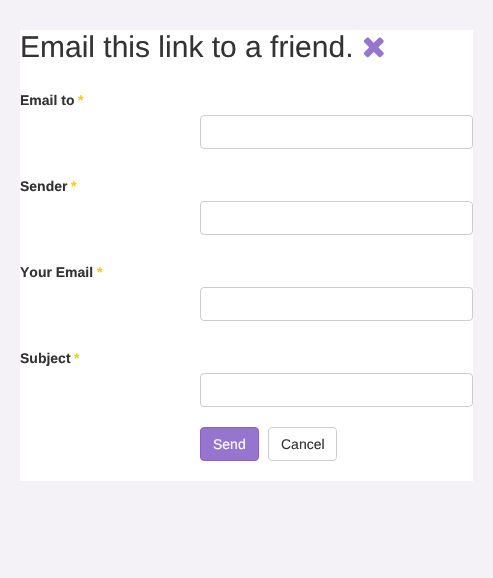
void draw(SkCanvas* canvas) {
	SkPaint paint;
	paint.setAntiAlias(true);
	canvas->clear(0xfff4f2f7);
	paint.setColor(0xffffffff);
	canvas->drawRect(SkRect::MakeXYWH(20, 30, 453, 451), paint);
	SkFont f1(fontMgr->matchFamilyStyle("Liberation Sans", SkFontStyle::Normal()), 30);
	f1.setSubpixel(true);
	paint.setColor(0xff333333);
	canvas->drawString("Email this link to a friend.", 20, 57, f1, paint);
	canvas->drawImageRect(SkImages::DeferredFromEncodedData(SkData::MakeFromFileName("img1.png")), SkRect::MakeXYWH(363, 37, 21, 21), SkSamplingOptions());
	SkFont f2(fontMgr->matchFamilyStyle("Liberation Sans", SkFontStyle::Bold()), 14);
	f2.setSubpixel(true);
	canvas->drawString("Email to", 20, 105, f2, paint);
	paint.setColor(0xffffcc00);
	canvas->drawString("*", 78, 105, f2, paint);
	paint.setStroke(true);
	paint.setStrokeWidth(1);
	paint.setColor(0xffcccccc);
	canvas->drawRoundRect(SkRect::MakeXYWH(200.5, 115.5, 272, 33), 3.5, 3.5, paint);
	paint.setStroke(false);
	paint.setColor(0xff333333);
	canvas->drawString("Sender", 20, 191, f2, paint);
	paint.setColor(0xffffcc00);
	canvas->drawString("*", 71, 191, f2, paint);
	paint.setStroke(true);
	paint.setColor(0xffcccccc);
	canvas->drawRoundRect(SkRect::MakeXYWH(200.5, 201.5, 272, 33), 3.5, 3.5, paint);
	paint.setStroke(false);
	paint.setColor(0xff333333);
	canvas->drawString("Your Email", 20, 277, f2, paint);
	paint.setColor(0xffffcc00);
	canvas->drawString("*", 97, 277, f2, paint);
	paint.setStroke(true);
	paint.setColor(0xffcccccc);
	canvas->drawRoundRect(SkRect::MakeXYWH(200.5, 287.5, 272, 33), 3.5, 3.5, paint);
	paint.setStroke(false);
	paint.setColor(0xff333333);
	canvas->drawString("Subject", 20, 363, f2, paint);
	paint.setColor(0xffffcc00);
	canvas->drawString("*", 74, 363, f2, paint);
	paint.setStroke(true);
	paint.setColor(0xffcccccc);
	canvas->drawRoundRect(SkRect::MakeXYWH(200.5, 373.5, 272, 33), 3.5, 3.5, paint);
	paint.setStroke(false);
	paint.setColor(0xff9575cd);
	canvas->drawRoundRect(SkRect::MakeXYWH(200.5, 427.5, 58, 33), 3.5, 3.5, paint);
	paint.setStroke(true);
	paint.setColor(0xff8762c6);
	canvas->drawRoundRect(SkRect::MakeXYWH(200.5, 427.5, 58, 33), 3.5, 3.5, paint);
	SkFont f3(fontMgr->matchFamilyStyle("Liberation Sans", SkFontStyle::Normal()), 14);
	f3.setSubpixel(true);
	paint.setStroke(false);
	paint.setColor(0xffffffff);
	canvas->drawString("Send", 213, 449, f3, paint);
	paint.setStroke(true);
	paint.setColor(0xffcccccc);
	canvas->drawRoundRect(SkRect::MakeXYWH(268.5, 427.5, 68, 33), 3.5, 3.5, paint);
	paint.setStroke(false);
	paint.setColor(0xff333333);
	canvas->drawString("Cancel", 281, 449, f3, paint);
}
